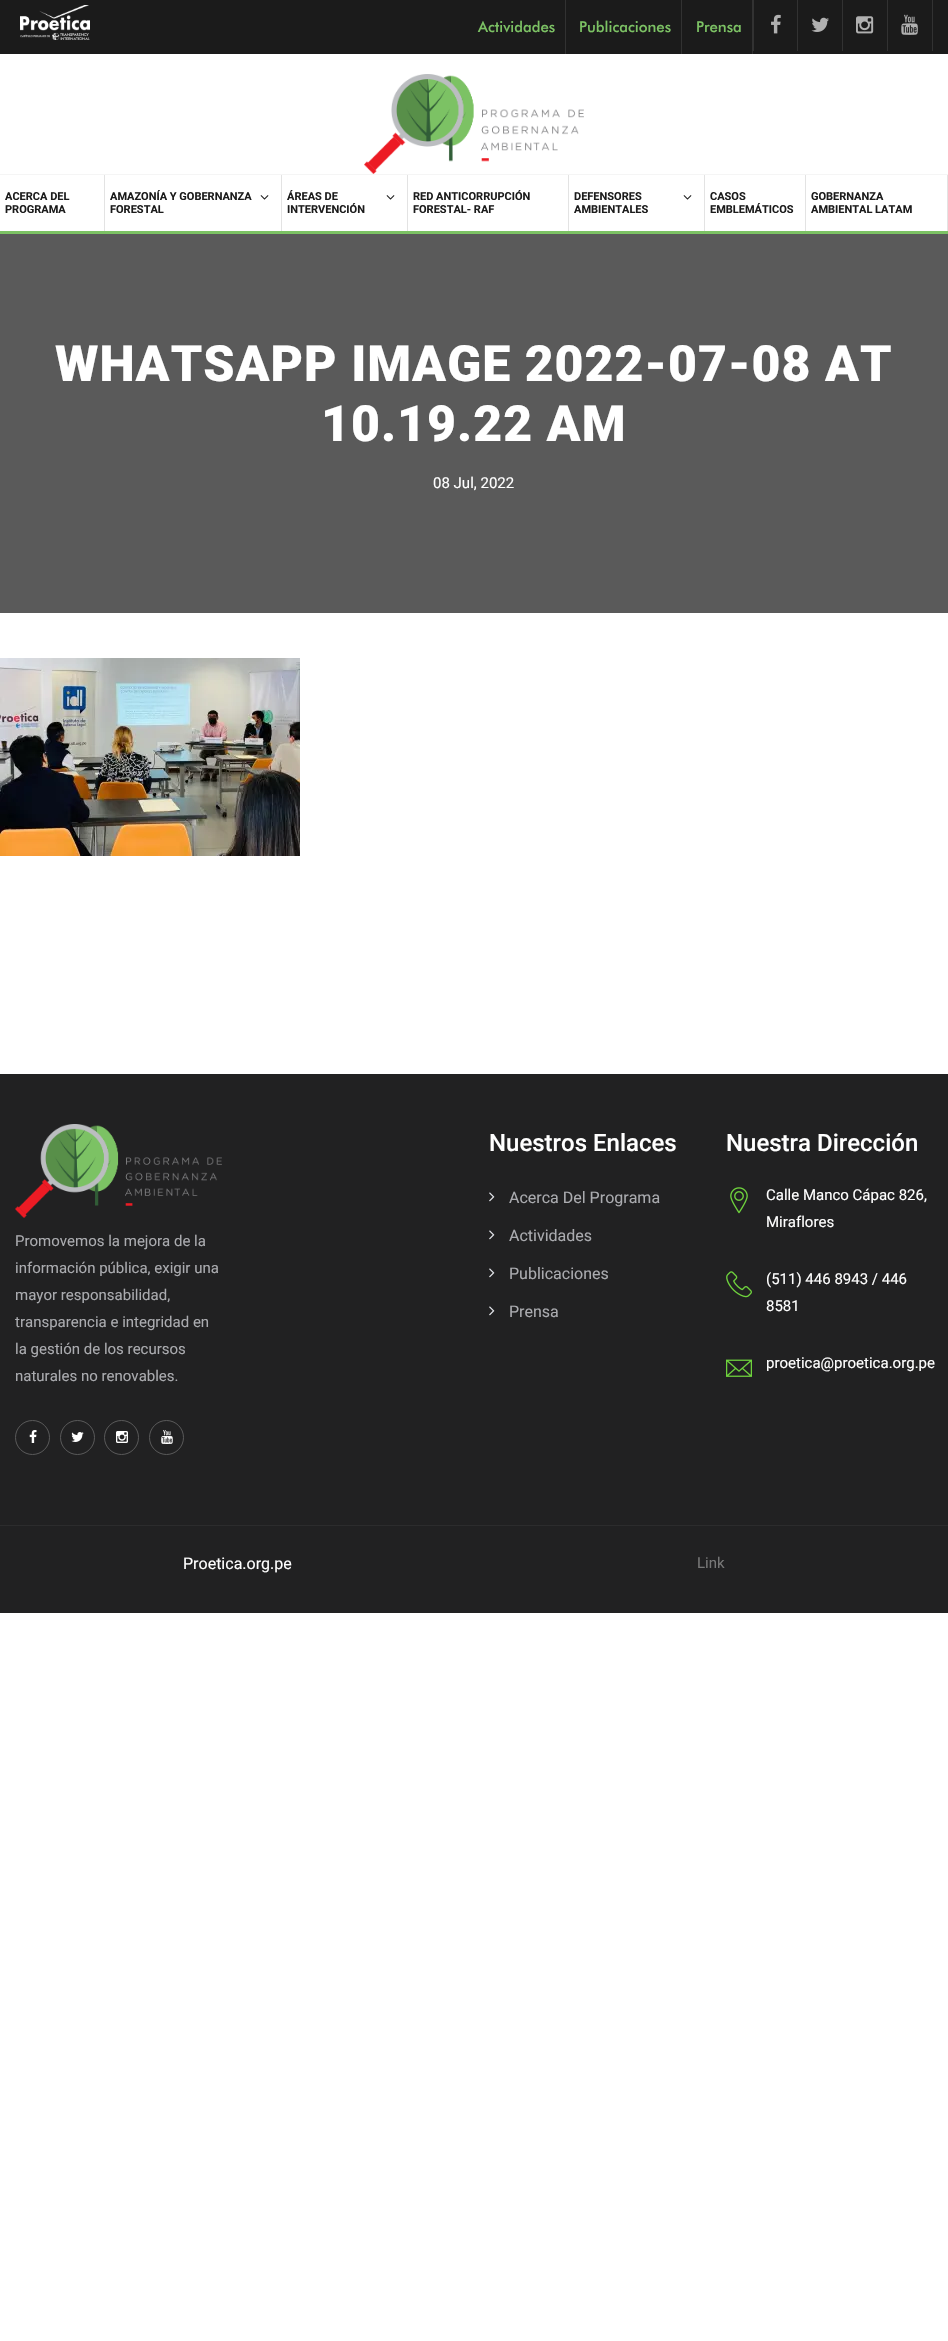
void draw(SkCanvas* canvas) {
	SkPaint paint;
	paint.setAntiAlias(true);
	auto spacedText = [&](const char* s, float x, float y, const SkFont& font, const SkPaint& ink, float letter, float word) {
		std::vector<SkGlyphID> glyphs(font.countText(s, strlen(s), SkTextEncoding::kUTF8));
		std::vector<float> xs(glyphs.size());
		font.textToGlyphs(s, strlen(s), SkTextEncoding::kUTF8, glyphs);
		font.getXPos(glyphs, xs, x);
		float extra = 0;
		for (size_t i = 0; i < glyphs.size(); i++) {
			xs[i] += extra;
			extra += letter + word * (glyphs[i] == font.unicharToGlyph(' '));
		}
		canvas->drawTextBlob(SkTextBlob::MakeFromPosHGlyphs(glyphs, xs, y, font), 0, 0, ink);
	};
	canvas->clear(0xffffffff);
	paint.setColor(0xff1b1b1b);
	canvas->drawRect(SkRect::MakeXYWH(0, 0, 948, 54), paint);
	canvas->drawImageRect(SkImages::DeferredFromEncodedData(SkData::MakeFromFileName("img1.png")), SkRect::MakeXYWH(20, 5, 70, 35), SkSamplingOptions());
	paint.setColor(0xff323232);
	canvas->drawRect(SkRect::MakeXYWH(565, 0, 1, 54), paint);
	SkFont f1(fontMgr->matchFamilyStyle("Futura", SkFontStyle(500, SkFontStyle::kNormal_Width, SkFontStyle::kUpright_Slant)), 15);
	f1.setSubpixel(true);
	paint.setColor(0xff7cc264);
	canvas->drawString("Actividades", 478, 32, f1, paint);
	paint.setColor(0xff323232);
	canvas->drawRect(SkRect::MakeXYWH(681, 0, 1, 54), paint);
	paint.setColor(0xff7cc264);
	canvas->drawString("Publicaciones", 579, 32, f1, paint);
	paint.setColor(0xff323232);
	canvas->drawRect(SkRect::MakeXYWH(752, 0, 1, 54), paint);
	paint.setColor(0xff7cc264);
	canvas->drawString("Prensa", 696, 32, f1, paint);
	paint.setColor(0xff323232);
	canvas->drawRect(SkRect::MakeXYWH(797, 0, 1, 51), paint);
	canvas->drawRect(SkRect::MakeXYWH(753, 0, 1, 51), paint);
	canvas->drawImageRect(SkImages::DeferredFromEncodedData(SkData::MakeFromFileName("img2.png")), SkRect::MakeXYWH(771, 14, 10, 20), SkSamplingOptions());
	canvas->drawRect(SkRect::MakeXYWH(842, 0, 1, 51), paint);
	canvas->drawImageRect(SkImages::DeferredFromEncodedData(SkData::MakeFromFileName("img3.png")), SkRect::MakeXYWH(811, 17, 18, 15), SkSamplingOptions());
	canvas->drawRect(SkRect::MakeXYWH(887, 0, 1, 51), paint);
	canvas->drawImageRect(SkImages::DeferredFromEncodedData(SkData::MakeFromFileName("img4.png")), SkRect::MakeXYWH(856, 16, 18, 18), SkSamplingOptions());
	canvas->drawRect(SkRect::MakeXYWH(932, 0, 1, 51), paint);
	canvas->drawImageRect(SkImages::DeferredFromEncodedData(SkData::MakeFromFileName("img5.png")), SkRect::MakeXYWH(901, 14, 17, 21), SkSamplingOptions());
	paint.setColor(0xfff5f5f5);
	canvas->drawRect(SkRect::MakeXYWH(0, 174, 948, 1), paint);
	canvas->drawImageRect(SkImages::DeferredFromEncodedData(SkData::MakeFromFileName("img6.png")), SkRect::MakeXYWH(364, 74, 220, 100), SkSamplingOptions());
	paint.setColor(0xff7cc264);
	canvas->drawRect(SkRect::MakeXYWH(0, 231, 948, 3), paint);
	paint.setColor(0xffe3e3e3);
	canvas->drawRect(SkRect::MakeXYWH(104, 175, 1, 56), paint);
	SkFont f2(fontMgr->matchFamilyStyle("Roboto", SkFontStyle::Bold()), 11);
	f2.setSubpixel(true);
	paint.setColor(0xff1c1c1c);
	canvas->drawString("ACERCA DEL", 5, 200, f2, paint);
	canvas->drawString("PROGRAMA", 5, 213, f2, paint);
	paint.setColor(0xffe3e3e3);
	canvas->drawRect(SkRect::MakeXYWH(281, 175, 1, 56), paint);
	paint.setColor(0xff1c1c1c);
	canvas->drawString("AMAZONÍA Y GOBERNANZA", 110, 200, f2, paint);
	canvas->drawImageRect(SkImages::DeferredFromEncodedData(SkData::MakeFromFileName("img7.png")), SkRect::MakeXYWH(260, 195, 9, 5), SkSamplingOptions());
	canvas->drawString("FORESTAL", 110, 213, f2, paint);
	paint.setColor(0xffe3e3e3);
	canvas->drawRect(SkRect::MakeXYWH(407, 175, 1, 56), paint);
	paint.setColor(0xff1c1c1c);
	canvas->drawString("ÁREAS DE", 287, 200, f2, paint);
	canvas->drawImageRect(SkImages::DeferredFromEncodedData(SkData::MakeFromFileName("img7.png")), SkRect::MakeXYWH(386, 195, 9, 5), SkSamplingOptions());
	canvas->drawString("INTERVENCIÓN", 287, 213, f2, paint);
	paint.setColor(0xffe3e3e3);
	canvas->drawRect(SkRect::MakeXYWH(568, 175, 1, 56), paint);
	paint.setColor(0xff1c1c1c);
	canvas->drawString("RED ANTICORRUPCIÓN", 413, 200, f2, paint);
	canvas->drawString("FORESTAL- RAF", 413, 213, f2, paint);
	paint.setColor(0xffe3e3e3);
	canvas->drawRect(SkRect::MakeXYWH(704, 175, 1, 56), paint);
	paint.setColor(0xff1c1c1c);
	canvas->drawString("DEFENSORES", 574, 200, f2, paint);
	canvas->drawImageRect(SkImages::DeferredFromEncodedData(SkData::MakeFromFileName("img7.png")), SkRect::MakeXYWH(683, 195, 9, 5), SkSamplingOptions());
	canvas->drawString("AMBIENTALES", 574, 213, f2, paint);
	paint.setColor(0xffe3e3e3);
	canvas->drawRect(SkRect::MakeXYWH(805, 175, 1, 56), paint);
	paint.setColor(0xff1c1c1c);
	canvas->drawString("CASOS", 710, 200, f2, paint);
	canvas->drawString("EMBLEMÁTICOS", 710, 213, f2, paint);
	paint.setColor(0xffe3e3e3);
	canvas->drawRect(SkRect::MakeXYWH(947, 175, 1, 56), paint);
	paint.setColor(0xff1c1c1c);
	canvas->drawString("GOBERNANZA", 811, 200, f2, paint);
	canvas->drawString("AMBIENTAL LATAM", 811, 213, f2, paint);
	paint.setColor(0xff5a5a5a);
	canvas->drawRect(SkRect::MakeXYWH(0, 234, 948, 379), paint);
	SkFont f3(fontMgr->matchFamilyStyle("Roboto", SkFontStyle(900, SkFontStyle::kNormal_Width, SkFontStyle::kUpright_Slant)), 50);
	f3.setSubpixel(true);
	paint.setColor(0xffffffff);
	spacedText("WHATSAPP IMAGE 2022-07-08 AT", 55, 381, f3, paint, 1, 0);
	spacedText("10.19.22 AM", 321, 441, f3, paint, 1, 0);
	SkFont f4(fontMgr->matchFamilyStyle("Roboto", SkFontStyle::Normal()), 15);
	f4.setSubpixel(true);
	canvas->drawString("08 Jul, 2022", 433, 488, f4, paint);
	canvas->drawImageRect(SkImages::DeferredFromEncodedData(SkData::MakeFromFileName("img8.png")), SkRect::MakeXYWH(0, 658, 300, 198), SkSamplingOptions());
	paint.setColor(0xff212122);
	canvas->drawRect(SkRect::MakeXYWH(0, 1074, 948, 539), paint);
	canvas->drawImageRect(SkImages::DeferredFromEncodedData(SkData::MakeFromFileName("img9.png")), SkRect::MakeXYWH(15, 1124, 207, 94), SkSamplingOptions());
	paint.setColor(0xffaaabaf);
	canvas->drawString("Promovemos la mejora de la", 15, 1246, f4, paint);
	canvas->drawString("información pública, exigir una", 15, 1273, f4, paint);
	canvas->drawString("mayor responsabilidad,", 15, 1300, f4, paint);
	canvas->drawString("transparencia e integridad en", 15, 1327, f4, paint);
	canvas->drawString("la gestión de los recursos", 15, 1354, f4, paint);
	canvas->drawString("naturales no renovables.", 15, 1381, f4, paint);
	paint.setStroke(true);
	paint.setStrokeWidth(1);
	paint.setColor(0xff595959);
	canvas->drawCircle(32.5, 1437.5, 17, paint);
	canvas->drawImageRect(SkImages::DeferredFromEncodedData(SkData::MakeFromFileName("img10.png")), SkRect::MakeXYWH(29, 1430, 8, 13), SkSamplingOptions());
	canvas->drawCircle(77.5, 1437.5, 17, paint);
	canvas->drawImageRect(SkImages::DeferredFromEncodedData(SkData::MakeFromFileName("img11.png")), SkRect::MakeXYWH(71, 1432, 13, 10), SkSamplingOptions());
	canvas->drawCircle(121.5, 1437.5, 17, paint);
	canvas->drawImageRect(SkImages::DeferredFromEncodedData(SkData::MakeFromFileName("img12.png")), SkRect::MakeXYWH(116, 1431, 12, 12), SkSamplingOptions());
	canvas->drawCircle(166.5, 1437.5, 17, paint);
	canvas->drawImageRect(SkImages::DeferredFromEncodedData(SkData::MakeFromFileName("img13.png")), SkRect::MakeXYWH(161, 1430, 12, 14), SkSamplingOptions());
	SkFont f5(fontMgr->matchFamilyStyle("Roboto", SkFontStyle(500, SkFontStyle::kNormal_Width, SkFontStyle::kUpright_Slant)), 24);
	f5.setSubpixel(true);
	paint.setStroke(false);
	paint.setColor(0xffffffff);
	canvas->drawString("Nuestros Enlaces", 489, 1151, f5, paint);
	canvas->drawImageRect(SkImages::DeferredFromEncodedData(SkData::MakeFromFileName("img14.png")), SkRect::MakeXYWH(489, 1192, 6, 10), SkSamplingOptions());
	SkFont f6(fontMgr->matchFamilyStyle("Roboto", SkFontStyle::Normal()), 16);
	f6.setSubpixel(true);
	paint.setColor(0xffaaabaf);
	canvas->drawString("Acerca Del Programa", 509, 1203, f6, paint);
	canvas->drawImageRect(SkImages::DeferredFromEncodedData(SkData::MakeFromFileName("img14.png")), SkRect::MakeXYWH(489, 1230, 6, 10), SkSamplingOptions());
	canvas->drawString("Actividades", 509, 1241, f6, paint);
	canvas->drawImageRect(SkImages::DeferredFromEncodedData(SkData::MakeFromFileName("img14.png")), SkRect::MakeXYWH(489, 1268, 6, 10), SkSamplingOptions());
	canvas->drawString("Publicaciones", 509, 1279, f6, paint);
	canvas->drawImageRect(SkImages::DeferredFromEncodedData(SkData::MakeFromFileName("img14.png")), SkRect::MakeXYWH(489, 1306, 6, 10), SkSamplingOptions());
	canvas->drawString("Prensa", 509, 1317, f6, paint);
	paint.setColor(0xffffffff);
	canvas->drawString("Nuestra Dirección", 726, 1151, f5, paint);
	canvas->drawImageRect(SkImages::DeferredFromEncodedData(SkData::MakeFromFileName("img15.png")), SkRect::MakeXYWH(730, 1187, 18, 27), SkSamplingOptions());
	canvas->drawString("Calle Manco Cápac 826,", 766, 1200, f4, paint);
	canvas->drawString("Miraflores", 766, 1227, f4, paint);
	canvas->drawImageRect(SkImages::DeferredFromEncodedData(SkData::MakeFromFileName("img16.png")), SkRect::MakeXYWH(726, 1271, 26, 27), SkSamplingOptions());
	canvas->drawString("(511) 446 8943 / 446", 766, 1284, f4, paint);
	canvas->drawString("8581", 766, 1311, f4, paint);
	canvas->drawImageRect(SkImages::DeferredFromEncodedData(SkData::MakeFromFileName("img17.png")), SkRect::MakeXYWH(726, 1359, 26, 18), SkSamplingOptions());
	canvas->drawString("proetica@proetica.org.pe", 766, 1368, f4, paint);
	paint.setColor(0xff2c2c2d);
	canvas->drawRect(SkRect::MakeXYWH(0, 1525, 948, 1), paint);
	paint.setColor(0xffffffff);
	canvas->drawString("Proetica.org.pe", 183, 1569, f6, paint);
	paint.setColor(0xff777777);
	canvas->drawString("Link", 697, 1568, f4, paint);
}
